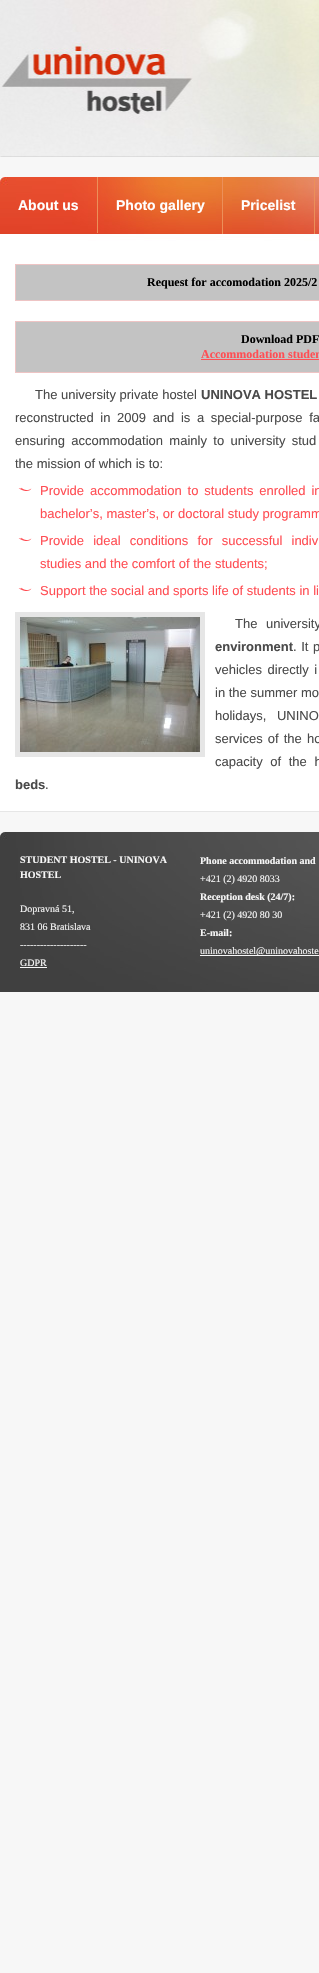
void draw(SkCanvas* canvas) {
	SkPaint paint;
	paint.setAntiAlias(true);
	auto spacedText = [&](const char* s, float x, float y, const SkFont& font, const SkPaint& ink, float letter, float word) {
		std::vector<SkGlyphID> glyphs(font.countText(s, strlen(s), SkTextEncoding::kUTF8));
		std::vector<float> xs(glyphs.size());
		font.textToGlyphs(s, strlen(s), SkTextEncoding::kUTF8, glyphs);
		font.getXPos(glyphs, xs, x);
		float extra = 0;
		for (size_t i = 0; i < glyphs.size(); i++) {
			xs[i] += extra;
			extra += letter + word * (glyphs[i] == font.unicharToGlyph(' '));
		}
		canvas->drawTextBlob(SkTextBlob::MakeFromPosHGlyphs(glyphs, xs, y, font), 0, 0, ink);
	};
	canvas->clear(0xfff7f7f7);
	canvas->drawImageRect(SkImages::DeferredFromEncodedData(SkData::MakeFromFileName("img1.png")), SkRect::MakeXYWH(0, 0, 319, 157), SkSamplingOptions());
	paint.setColor(0xffffffff);
	canvas->drawRect(SkRect::MakeXYWH(0, 244, 319, 567), paint);
	canvas->drawImageRect(SkImages::DeferredFromEncodedData(SkData::MakeFromFileName("img2.png")), SkRect::MakeXYWH(0, 177, 319, 67), SkSamplingOptions());
	paint.setColor(0xffec8f59);
	canvas->drawRect(SkRect::MakeXYWH(97, 177, 1, 56), paint);
	SkFont f1(fontMgr->matchFamilyStyle("Liberation Sans", SkFontStyle::Bold()), 14);
	f1.setSubpixel(true);
	paint.setColor(0xffffffff);
	canvas->drawString("About us", 18, 210, f1, paint);
	paint.setColor(0xffec8f59);
	canvas->drawRect(SkRect::MakeXYWH(222, 177, 1, 57), paint);
	paint.setColor(0xffffffff);
	canvas->drawString("Photo gallery", 116, 210, f1, paint);
	paint.setColor(0xffec8f59);
	canvas->drawRect(SkRect::MakeXYWH(314, 177, 1, 57), paint);
	paint.setColor(0xffffffff);
	canvas->drawString("Pricelist", 241, 210, f1, paint);
	paint.setColor(0xffc3c3c3);
	canvas->drawRect(SkRect::MakeXYWH(15.5, 264.5, 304, 36), paint);
	paint.setStroke(true);
	paint.setStrokeWidth(1);
	paint.setColor(0xffeec4c4);
	canvas->drawRect(SkRect::MakeXYWH(15.5, 264.5, 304, 36), paint);
	SkFont f2(fontMgr->matchFamilyStyle("Liberation Serif", SkFontStyle::Bold()), 12);
	f2.setSubpixel(true);
	paint.setStroke(false);
	paint.setColor(0xff000000);
	canvas->drawString("Request for accomodation 2025/2", 147, 286, f2, paint);
	paint.setColor(0xffc3c3c3);
	canvas->drawRect(SkRect::MakeXYWH(15.5, 321.5, 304, 51), paint);
	paint.setStroke(true);
	paint.setColor(0xffeec4c4);
	canvas->drawRect(SkRect::MakeXYWH(15.5, 321.5, 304, 51), paint);
	paint.setStroke(false);
	paint.setColor(0xff000000);
	canvas->drawString("Download PDF", 241, 343, f2, paint);
	paint.setColor(0xffff4e54);
	canvas->drawString("Accommodation studen", 201, 358, f2, paint);
	canvas->drawRect(SkRect::MakeXYWH(201, 359, 118, 1), paint);
	SkFont f3(fontMgr->matchFamilyStyle("Liberation Sans", SkFontStyle::Normal()), 13);
	f3.setSubpixel(true);
	paint.setColor(0xff4a4a4a);
	canvas->drawString("The university private hostel", 35, 399, f3, paint);
	SkFont f4(fontMgr->matchFamilyStyle("Liberation Sans", SkFontStyle::Bold()), 13);
	f4.setSubpixel(true);
	canvas->drawString("UNINOVA HOSTEL", 201, 399, f4, paint);
	spacedText("reconstructed in 2009 and is a special-purpose fa", 15, 422, f3, paint, 0, 3);
	spacedText("ensuring accommodation mainly to university stud", 15, 445, f3, paint, 0, 2.75);
	canvas->drawString("the mission of which is to:", 15, 468, f3, paint);
	canvas->drawImageRect(SkImages::DeferredFromEncodedData(SkData::MakeFromFileName("img3.png")), SkRect::MakeXYWH(18, 487, 14, 4), SkSamplingOptions());
	paint.setColor(0xffff4e54);
	spacedText("Provide accommodation to students enrolled in", 40, 495, f3, paint, 0, 2.25);
	canvas->drawString("bachelor’s, master’s, or doctoral study programm", 40, 518, f3, paint);
	canvas->drawImageRect(SkImages::DeferredFromEncodedData(SkData::MakeFromFileName("img3.png")), SkRect::MakeXYWH(18, 537, 14, 4), SkSamplingOptions());
	spacedText("Provide ideal conditions for successful indivi", 40, 545, f3, paint, 0, 5.5);
	canvas->drawString("studies and the comfort of the students;", 40, 568, f3, paint);
	canvas->drawImageRect(SkImages::DeferredFromEncodedData(SkData::MakeFromFileName("img3.png")), SkRect::MakeXYWH(18, 587, 14, 4), SkSamplingOptions());
	canvas->drawString("Support the social and sports life of students in li", 40, 595, f3, paint);
	paint.setStroke(true);
	paint.setStrokeWidth(5);
	paint.setColor(0xffe6e6e6);
	canvas->drawRect(SkRect::MakeXYWH(17.5, 614.5, 185, 140), paint);
	canvas->drawImageRect(SkImages::DeferredFromEncodedData(SkData::MakeFromFileName("img4.png")), SkRect::MakeXYWH(20, 617, 180, 135), SkSamplingOptions());
	paint.setStroke(false);
	paint.setColor(0xff4a4a4a);
	spacedText("The university", 235, 628, f3, paint, 0, 5);
	canvas->drawString("environment", 215, 651, f4, paint);
	spacedText(". It p", 293, 651, f3, paint, 0, 1);
	spacedText("vehicles directly i", 215, 674, f3, paint, 0, 2);
	canvas->drawString("in the summer mo", 215, 697, f3, paint);
	spacedText("holidays, UNINO", 215, 720, f3, paint, 0, 7);
	spacedText("services of the ho", 215, 743, f3, paint, 0, 1.5);
	spacedText("capacity of the h", 215, 766, f3, paint, 0, 4);
	canvas->drawString("beds", 15, 789, f4, paint);
	canvas->drawString(".", 45, 789, f3, paint);
	paint.setColor(0xffe6e6e6);
	canvas->drawRect(SkRect::MakeXYWH(0, 811, 319, 1), paint);
	canvas->drawImageRect(SkImages::DeferredFromEncodedData(SkData::MakeFromFileName("img5.png")), SkRect::MakeXYWH(0, 832, 319, 160), SkSamplingOptions());
	SkFont f5(fontMgr->matchFamilyStyle("Liberation Serif", SkFontStyle::Bold()), 10);
	f5.setSubpixel(true);
	paint.setColor(0xfff7f7f7);
	canvas->drawString("STUDENT HOSTEL - UNINOVA", 20, 863, f5, paint);
	canvas->drawString("HOSTEL", 20, 878, f5, paint);
	SkFont f6(fontMgr->matchFamilyStyle("Liberation Serif", SkFontStyle::Normal()), 10);
	f6.setSubpixel(true);
	canvas->drawString("Dopravná 51,", 20, 912, f6, paint);
	canvas->drawString("831 06 Bratislava", 20, 930, f6, paint);
	canvas->drawString("--------------------", 20, 948, f6, paint);
	canvas->drawString("GDPR", 20, 966, f6, paint);
	canvas->drawRect(SkRect::MakeXYWH(20, 967, 27, 1), paint);
	canvas->drawString("Phone accommodation and", 200, 864, f5, paint);
	canvas->drawString("+421 (2) 4920 8033", 200, 882, f6, paint);
	canvas->drawString("Reception desk (24/7):", 200, 900, f5, paint);
	canvas->drawString("+421 (2) 4920 80 30", 200, 918, f6, paint);
	canvas->drawString("E-mail:", 200, 936, f5, paint);
	canvas->drawRect(SkRect::MakeXYWH(200, 955, 119, 1), paint);
	canvas->drawString("uninovahostel@uninovahoste", 200, 954, f6, paint);
}
